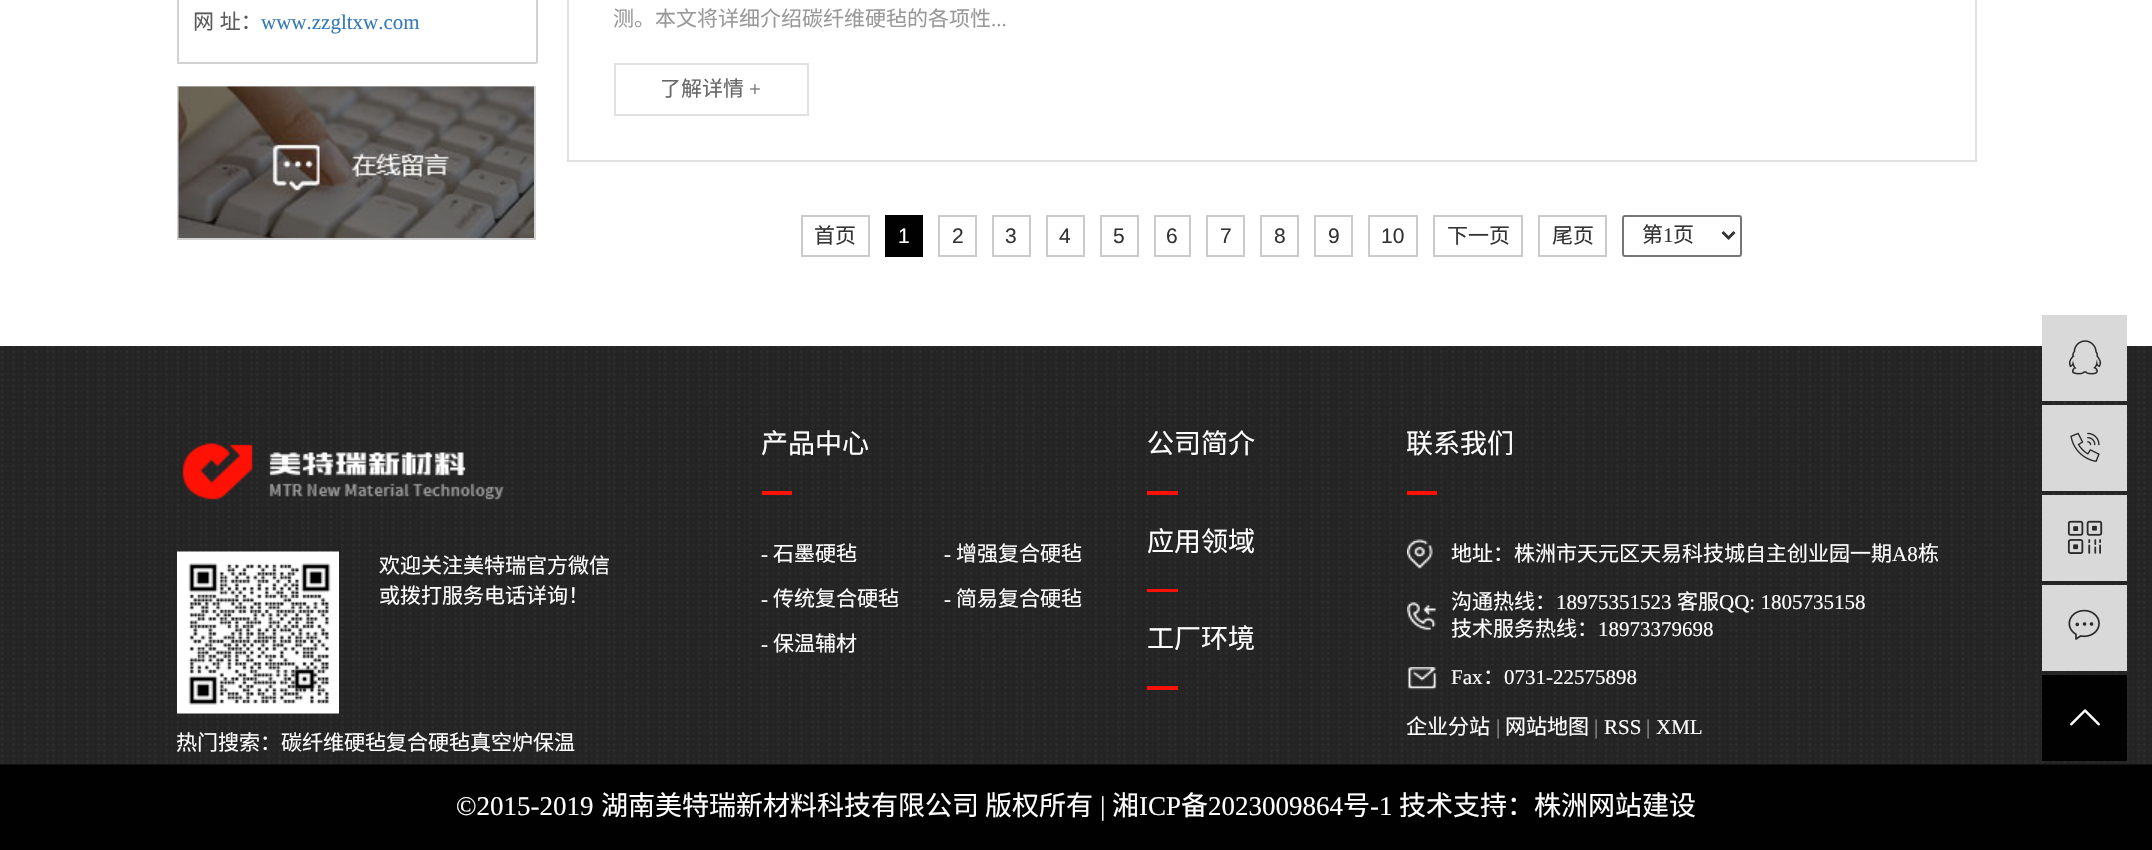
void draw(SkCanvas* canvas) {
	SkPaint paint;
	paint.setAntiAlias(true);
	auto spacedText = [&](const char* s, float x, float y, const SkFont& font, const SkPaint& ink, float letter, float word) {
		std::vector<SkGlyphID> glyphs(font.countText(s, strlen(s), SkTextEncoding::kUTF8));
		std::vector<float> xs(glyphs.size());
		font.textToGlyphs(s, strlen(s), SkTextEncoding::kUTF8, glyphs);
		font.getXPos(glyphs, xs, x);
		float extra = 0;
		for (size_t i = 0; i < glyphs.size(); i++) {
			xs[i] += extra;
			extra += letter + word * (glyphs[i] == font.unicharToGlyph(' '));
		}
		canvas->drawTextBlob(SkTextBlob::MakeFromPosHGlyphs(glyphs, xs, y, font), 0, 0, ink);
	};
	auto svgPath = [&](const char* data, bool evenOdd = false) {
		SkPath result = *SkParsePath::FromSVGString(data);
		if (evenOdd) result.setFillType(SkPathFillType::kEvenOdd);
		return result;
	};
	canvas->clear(0xffffffff);
	paint.setColor(0xffd2d2d2);
	canvas->drawRect(SkRect::MakeXYWH(536, 0, 2, 63), paint);
	canvas->drawRect(SkRect::MakeXYWH(177, 62, 360, 2), paint);
	canvas->drawRect(SkRect::MakeXYWH(177, 0, 2, 63), paint);
	SkFont f1(fontMgr->matchFamilyStyle("Noto Sans CJK SC", SkFontStyle::Normal()), 21);
	f1.setSubpixel(true);
	paint.setColor(0xff5a5a5a);
	spacedText("网 址：", 193, 29, f1, paint, 0, 1);
	SkFont f2(fontMgr->matchFamilyStyle("Liberation Serif", SkFontStyle::Normal()), 21);
	f2.setSubpixel(true);
	paint.setColor(0xff337ab7);
	canvas->drawString("www.zzgltxw.com", 261, 29, f2, paint);
	paint.setStroke(true);
	paint.setStrokeWidth(2);
	paint.setColor(0xffd2d2d2);
	canvas->drawRect(SkRect::MakeXYWH(178, 87, 357, 152), paint);
	canvas->drawImageRect(SkImages::DeferredFromEncodedData(SkData::MakeFromFileName("img1.png")), SkRect::MakeXYWH(178, 86, 356, 152), SkSamplingOptions());
	paint.setColor(0xffe1e1e1);
	canvas->drawRect(SkRect::MakeXYWH(568, -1, 1408, 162), paint);
	paint.setStroke(false);
	paint.setColor(0xff999999);
	canvas->drawString("测。本文将详细介绍碳纤维硬毡的各项性", 613, 26, f1, paint);
	canvas->drawString("...", 991, 26, f2, paint);
	paint.setStroke(true);
	paint.setColor(0xffe1e1e1);
	canvas->drawRect(SkRect::MakeXYWH(615, 64, 193, 51), paint);
	paint.setStroke(false);
	paint.setColor(0xff666666);
	canvas->drawString("了解详情", 660, 96, f1, paint);
	canvas->drawString("+", 749, 96, f2, paint);
	paint.setStroke(true);
	paint.setColor(0xffcbcbcb);
	canvas->drawRect(SkRect::MakeXYWH(802, 216, 67, 40), paint);
	paint.setStroke(false);
	paint.setColor(0xff333333);
	canvas->drawString("首页", 814, 243, f1, paint);
	paint.setColor(0xff010101);
	canvas->drawRect(SkRect::MakeXYWH(885, 215, 38, 42), paint);
	SkFont f3(fontMgr->matchFamilyStyle("Liberation Sans", SkFontStyle::Normal()), 21);
	f3.setSubpixel(true);
	paint.setColor(0xffffffff);
	canvas->drawString("1", 898, 243, f3, paint);
	paint.setStroke(true);
	paint.setColor(0xffcbcbcb);
	canvas->drawRect(SkRect::MakeXYWH(939, 216, 37, 40), paint);
	paint.setStroke(false);
	paint.setColor(0xff333333);
	canvas->drawString("2", 952, 243, f3, paint);
	paint.setStroke(true);
	paint.setColor(0xffcbcbcb);
	canvas->drawRect(SkRect::MakeXYWH(993, 216, 37, 40), paint);
	paint.setStroke(false);
	paint.setColor(0xff333333);
	canvas->drawString("3", 1005, 243, f3, paint);
	paint.setStroke(true);
	paint.setColor(0xffcbcbcb);
	canvas->drawRect(SkRect::MakeXYWH(1047, 216, 37, 40), paint);
	paint.setStroke(false);
	paint.setColor(0xff333333);
	canvas->drawString("4", 1059, 243, f3, paint);
	paint.setStroke(true);
	paint.setColor(0xffcbcbcb);
	canvas->drawRect(SkRect::MakeXYWH(1101, 216, 37, 40), paint);
	paint.setStroke(false);
	paint.setColor(0xff333333);
	canvas->drawString("5", 1113, 243, f3, paint);
	paint.setStroke(true);
	paint.setColor(0xffcbcbcb);
	canvas->drawRect(SkRect::MakeXYWH(1155, 216, 35, 40), paint);
	paint.setStroke(false);
	paint.setColor(0xff333333);
	canvas->drawString("6", 1166, 243, f3, paint);
	paint.setStroke(true);
	paint.setColor(0xffcbcbcb);
	canvas->drawRect(SkRect::MakeXYWH(1207, 216, 37, 40), paint);
	paint.setStroke(false);
	paint.setColor(0xff333333);
	canvas->drawString("7", 1220, 243, f3, paint);
	paint.setStroke(true);
	paint.setColor(0xffcbcbcb);
	canvas->drawRect(SkRect::MakeXYWH(1261, 216, 37, 40), paint);
	paint.setStroke(false);
	paint.setColor(0xff333333);
	canvas->drawString("8", 1274, 243, f3, paint);
	paint.setStroke(true);
	paint.setColor(0xffcbcbcb);
	canvas->drawRect(SkRect::MakeXYWH(1315, 216, 37, 40), paint);
	paint.setStroke(false);
	paint.setColor(0xff333333);
	canvas->drawString("9", 1328, 243, f3, paint);
	paint.setStroke(true);
	paint.setColor(0xffcbcbcb);
	canvas->drawRect(SkRect::MakeXYWH(1369, 216, 48, 40), paint);
	paint.setStroke(false);
	paint.setColor(0xff333333);
	canvas->drawString("10", 1381, 243, f3, paint);
	paint.setStroke(true);
	paint.setColor(0xffcbcbcb);
	canvas->drawRect(SkRect::MakeXYWH(1434, 216, 88, 40), paint);
	paint.setStroke(false);
	paint.setColor(0xff333333);
	canvas->drawString("下一页", 1447, 243, f1, paint);
	paint.setStroke(true);
	paint.setColor(0xffcbcbcb);
	canvas->drawRect(SkRect::MakeXYWH(1539, 216, 67, 40), paint);
	paint.setStroke(false);
	paint.setColor(0xff333333);
	canvas->drawString("尾页", 1552, 243, f1, paint);
	paint.setStroke(true);
	paint.setColor(0xff767676);
	canvas->drawRoundRect(SkRect::MakeXYWH(1623, 216, 118, 40), 2, 2, paint);
	paint.setStrokeWidth(3);
	paint.setColor(0xff333333);
	canvas->drawPath(svgPath("M1722.5 232L1728.5 238L1734.5 232"), paint);
	paint.setStroke(false);
	canvas->drawString("第", 1642, 242, f1, paint);
	canvas->drawString("1", 1663, 242, f2, paint);
	canvas->drawString("页", 1673, 242, f1, paint);
	canvas->drawImageRect(SkImages::DeferredFromEncodedData(SkData::MakeFromFileName("img2.png")), SkRect::MakeXYWH(0, 346, 2152, 504), SkSamplingOptions());
	canvas->drawImageRect(SkImages::DeferredFromEncodedData(SkData::MakeFromFileName("img3.png")), SkRect::MakeXYWH(182, 443, 323, 57), SkSamplingOptions());
	canvas->drawImageRect(SkImages::DeferredFromEncodedData(SkData::MakeFromFileName("img4.png")), SkRect::MakeXYWH(177, 551, 162, 163), SkSamplingOptions());
	paint.setColor(0xffffffff);
	canvas->drawString("欢迎关注美特瑞官方微信", 379, 573, f1, paint);
	canvas->drawString("或拨打服务电话详询！", 379, 603, f1, paint);
	canvas->drawString("热门搜索：碳纤维硬毡复合硬毡真空炉保温", 176, 750, f1, paint);
	paint.setColor(0xffff1105);
	canvas->drawRect(SkRect::MakeXYWH(762, 491, 30, 4), paint);
	SkFont f4(fontMgr->matchFamilyStyle("Noto Sans CJK SC", SkFontStyle::Normal()), 27);
	f4.setSubpixel(true);
	paint.setColor(0xffffffff);
	canvas->drawString("产品中心", 761, 453, f4, paint);
	canvas->drawString("-", 761, 561, f2, paint);
	canvas->drawString("石墨硬毡", 773, 561, f1, paint);
	canvas->drawString("-", 944, 561, f2, paint);
	canvas->drawString("增强复合硬毡", 956, 561, f1, paint);
	canvas->drawString("-", 761, 606, f2, paint);
	canvas->drawString("传统复合硬毡", 773, 606, f1, paint);
	canvas->drawString("-", 944, 606, f2, paint);
	canvas->drawString("简易复合硬毡", 956, 606, f1, paint);
	canvas->drawString("-", 761, 651, f2, paint);
	canvas->drawString("保温辅材", 773, 651, f1, paint);
	paint.setColor(0xffff1105);
	canvas->drawRect(SkRect::MakeXYWH(1147, 491, 31, 4), paint);
	paint.setColor(0xffffffff);
	canvas->drawString("公司简介", 1147, 453, f4, paint);
	paint.setColor(0xffff1105);
	canvas->drawRect(SkRect::MakeXYWH(1147, 589, 31, 3), paint);
	paint.setColor(0xffffffff);
	canvas->drawString("应用领域", 1147, 551, f4, paint);
	paint.setColor(0xffff1105);
	canvas->drawRect(SkRect::MakeXYWH(1147, 686, 31, 4), paint);
	paint.setColor(0xffffffff);
	canvas->drawString("工厂环境", 1147, 648, f4, paint);
	paint.setColor(0xffff1105);
	canvas->drawRect(SkRect::MakeXYWH(1407, 491, 30, 4), paint);
	paint.setColor(0xffffffff);
	canvas->drawString("联系我们", 1406, 453, f4, paint);
	canvas->drawImageRect(SkImages::DeferredFromEncodedData(SkData::MakeFromFileName("img5.png")), SkRect::MakeXYWH(1407, 539, 26, 30), SkSamplingOptions());
	canvas->drawString("地址：株洲市天元区天易科技城自主创业园一期", 1451, 561, f1, paint);
	canvas->drawString("A8", 1892, 561, f2, paint);
	canvas->drawString("栋", 1918, 561, f1, paint);
	canvas->drawImageRect(SkImages::DeferredFromEncodedData(SkData::MakeFromFileName("img6.png")), SkRect::MakeXYWH(1407, 602, 30, 29), SkSamplingOptions());
	canvas->drawString("沟通热线：", 1451, 609, f1, paint);
	canvas->drawString("18975351523", 1556, 609, f2, paint);
	canvas->drawString("客服", 1677, 609, f1, paint);
	canvas->drawString("QQ: 1805735158", 1719, 609, f2, paint);
	canvas->drawString("技术服务热线：", 1451, 636, f1, paint);
	canvas->drawString("18973379698", 1598, 636, f2, paint);
	canvas->drawImageRect(SkImages::DeferredFromEncodedData(SkData::MakeFromFileName("img7.png")), SkRect::MakeXYWH(1407, 667, 30, 23), SkSamplingOptions());
	canvas->drawString("Fax", 1451, 684, f2, paint);
	canvas->drawString("：", 1483, 684, f1, paint);
	canvas->drawString("0731-22575898", 1504, 684, f2, paint);
	canvas->drawString("企业分站", 1406, 734, f1, paint);
	paint.setColor(0xff999999);
	canvas->drawString("|", 1496, 734, f2, paint);
	paint.setColor(0xffffffff);
	canvas->drawString("网站地图", 1505, 734, f1, paint);
	paint.setColor(0xff999999);
	canvas->drawString("|", 1594, 734, f2, paint);
	paint.setColor(0xffffffff);
	canvas->drawString("RSS", 1604, 734, f2, paint);
	paint.setColor(0xff999999);
	canvas->drawString("|", 1646, 734, f2, paint);
	paint.setColor(0xffffffff);
	canvas->drawString("XML", 1656, 734, f2, paint);
	SkFont f5(fontMgr->matchFamilyStyle("Liberation Serif", SkFontStyle::Normal()), 27);
	f5.setSubpixel(true);
	canvas->drawString("©2015-2019", 456, 815, f5, paint);
	canvas->drawString("湖南美特瑞新材料科技有限公司 版权所有", 601, 815, f4, paint);
	canvas->drawString("|", 1100, 815, f5, paint);
	canvas->drawString("湘", 1112, 815, f4, paint);
	canvas->drawString("ICP", 1139, 815, f5, paint);
	canvas->drawString("备", 1181, 815, f4, paint);
	canvas->drawString("2023009864", 1208, 815, f5, paint);
	canvas->drawString("号", 1343, 815, f4, paint);
	canvas->drawString("-1", 1370, 815, f5, paint);
	canvas->drawString("技术支持：株洲网站建设", 1399, 815, f4, paint);
	paint.setColor(0xffd9d9d9);
	canvas->drawRect(SkRect::MakeXYWH(2042, 315, 85, 86), paint);
	canvas->drawImageRect(SkImages::DeferredFromEncodedData(SkData::MakeFromFileName("img8.png")), SkRect::MakeXYWH(2069, 340, 33, 35), SkSamplingOptions());
	canvas->drawRect(SkRect::MakeXYWH(2042, 405, 85, 86), paint);
	canvas->drawImageRect(SkImages::DeferredFromEncodedData(SkData::MakeFromFileName("img9.png")), SkRect::MakeXYWH(2070, 432, 30, 30), SkSamplingOptions());
	canvas->drawRect(SkRect::MakeXYWH(2042, 495, 85, 86), paint);
	canvas->drawImageRect(SkImages::DeferredFromEncodedData(SkData::MakeFromFileName("img10.png")), SkRect::MakeXYWH(2067, 520, 36, 34), SkSamplingOptions());
	canvas->drawRect(SkRect::MakeXYWH(2042, 585, 85, 86), paint);
	canvas->drawImageRect(SkImages::DeferredFromEncodedData(SkData::MakeFromFileName("img11.png")), SkRect::MakeXYWH(2068, 609, 32, 31), SkSamplingOptions());
	paint.setColor(0xff010101);
	canvas->drawRect(SkRect::MakeXYWH(2042, 675, 85, 86), paint);
	canvas->drawImageRect(SkImages::DeferredFromEncodedData(SkData::MakeFromFileName("img12.png")), SkRect::MakeXYWH(2070, 709, 30, 17), SkSamplingOptions());
}
